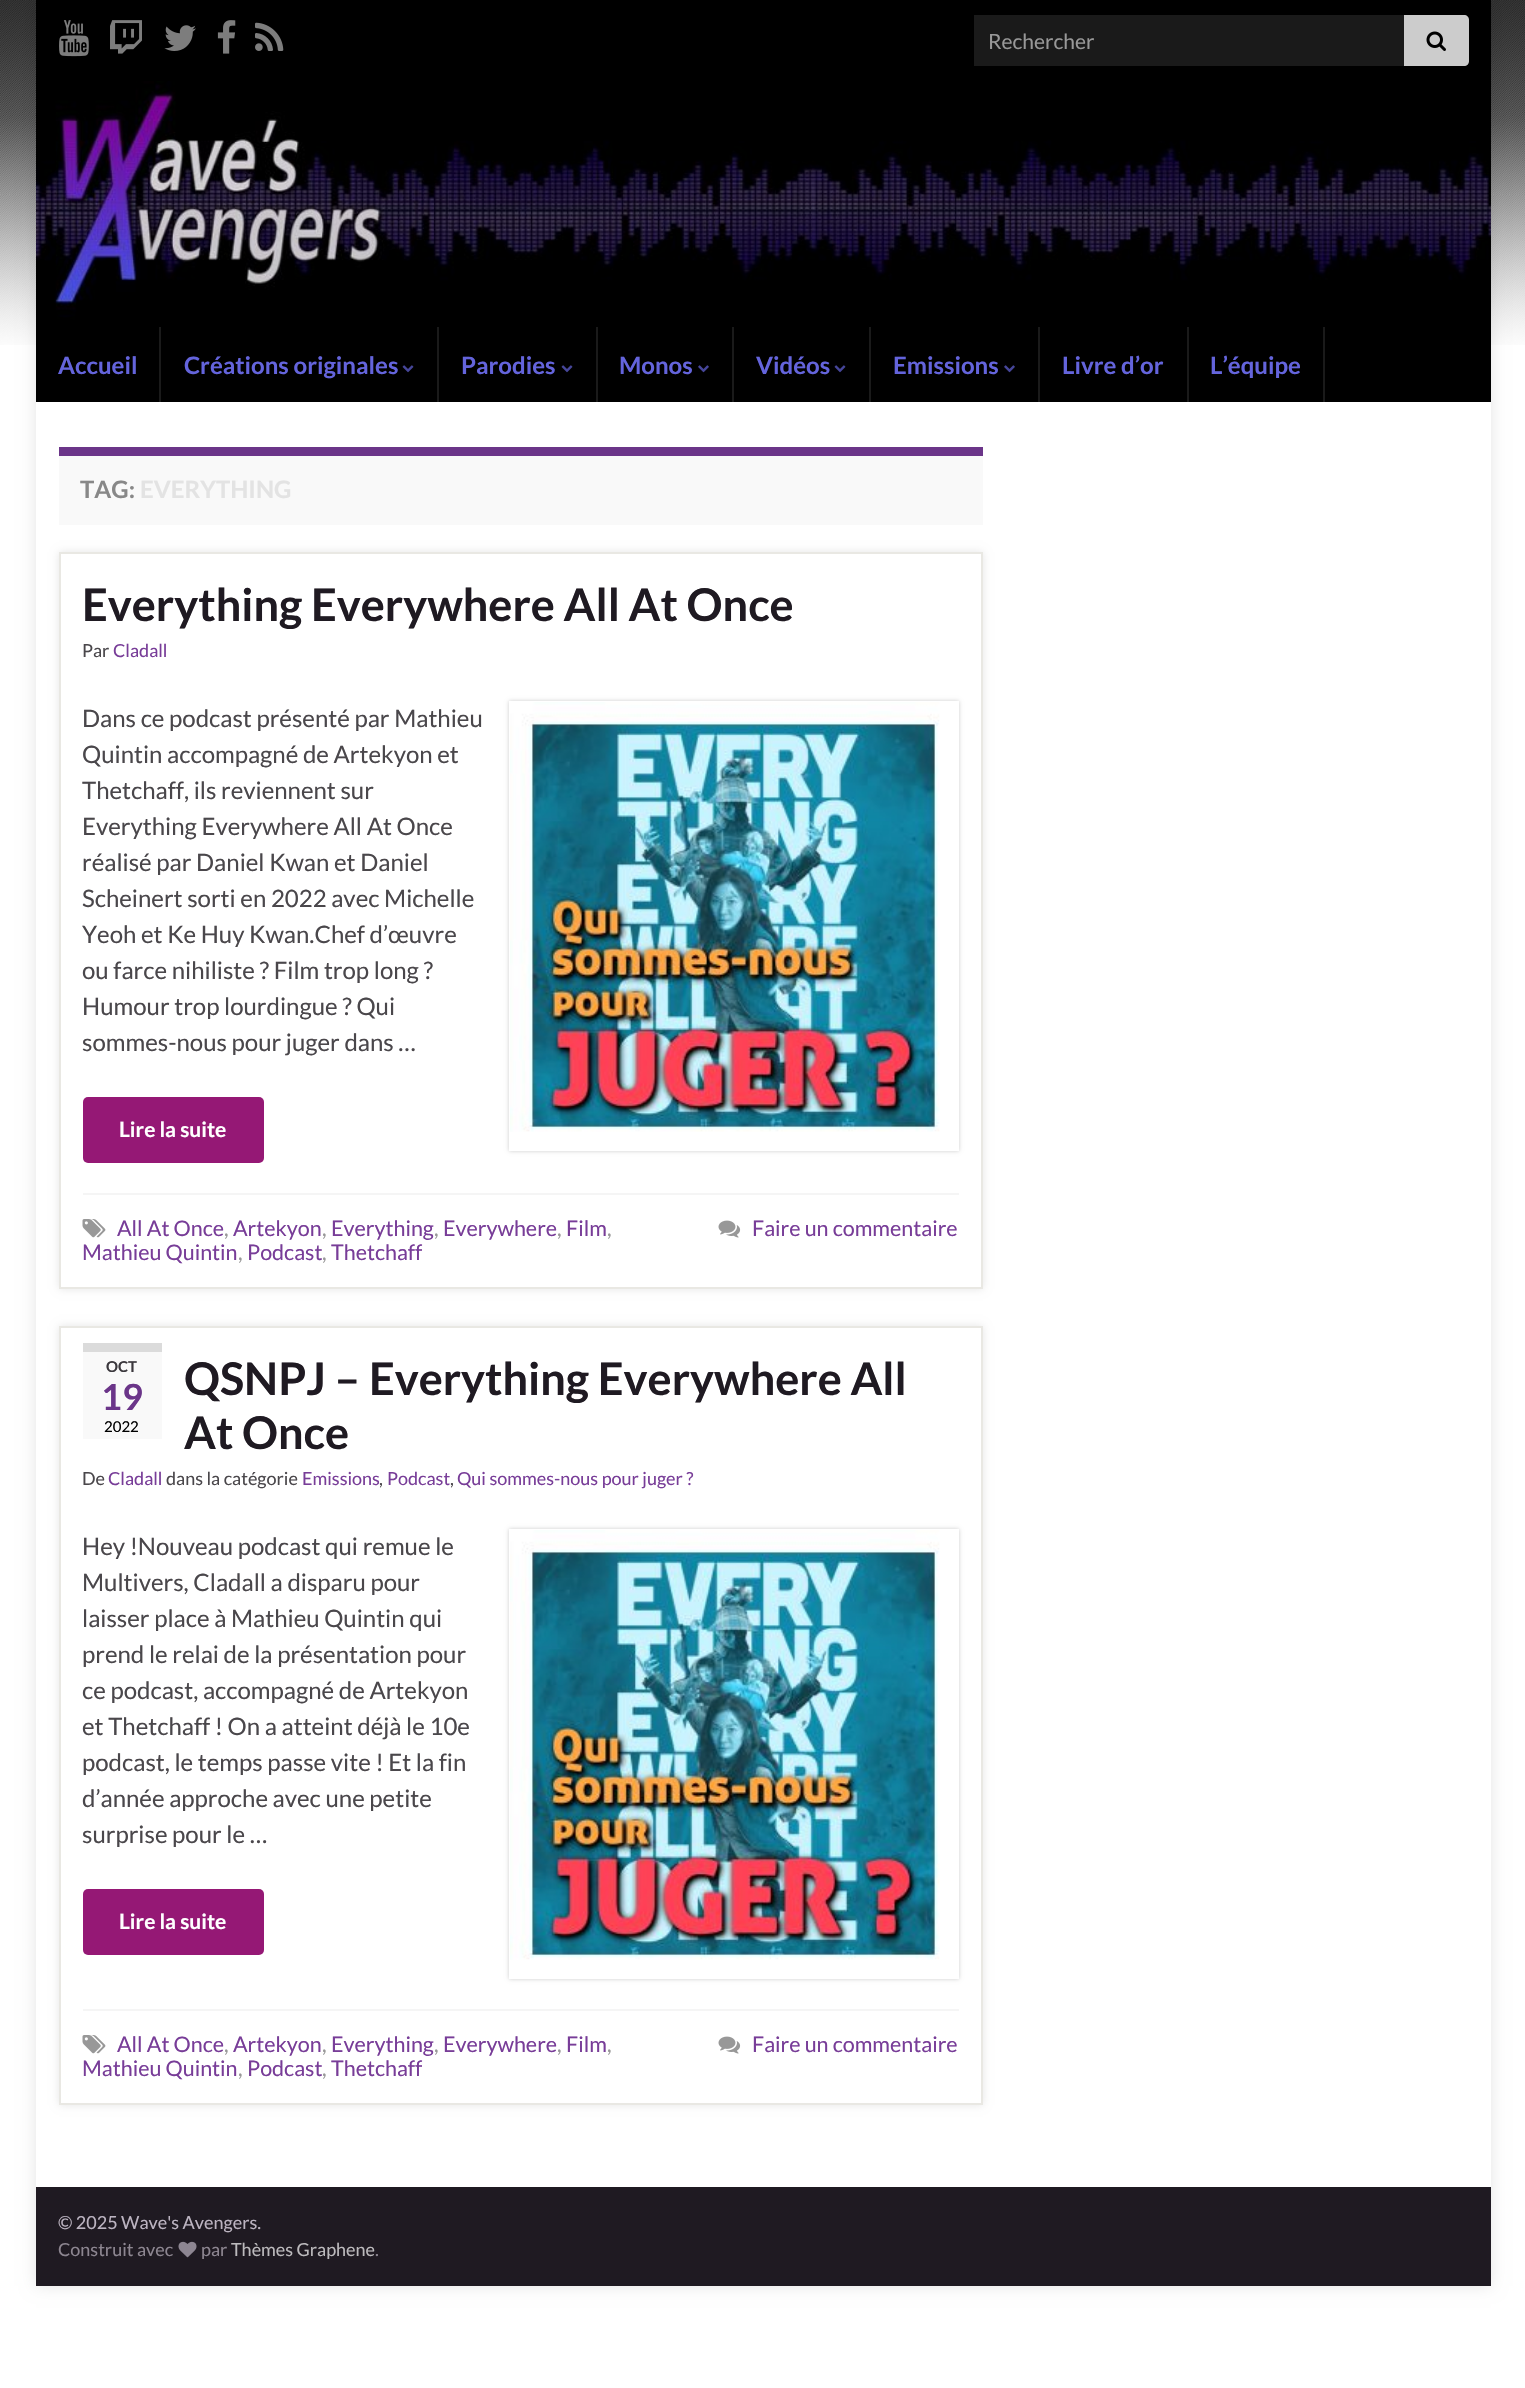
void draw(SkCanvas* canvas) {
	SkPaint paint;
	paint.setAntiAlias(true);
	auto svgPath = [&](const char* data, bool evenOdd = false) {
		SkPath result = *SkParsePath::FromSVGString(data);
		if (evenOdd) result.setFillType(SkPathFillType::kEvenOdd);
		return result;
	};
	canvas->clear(0xffffffff);
	canvas->drawImageRect(SkImages::DeferredFromEncodedData(SkData::MakeFromFileName("img1.png")), SkRect::MakeXYWH(0, 0, 1525, 345), SkSamplingOptions());
	canvas->save();
	canvas->clipPath(svgPath("M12 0H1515V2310H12ZM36 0H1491V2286H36Z", true), true);
	paint.setColor(0x1a000000);
	paint.setMaskFilter(SkMaskFilter::MakeBlur(kNormal_SkBlurStyle, 7.5));
	canvas->drawRect(SkRect::MakeXYWH(36, 0, 1455, 2286), paint);
	paint.setMaskFilter(nullptr);
	canvas->restore();
	paint.setColor(0xff000000);
	canvas->drawRect(SkRect::MakeXYWH(36, 0, 1455, 81), paint);
	canvas->drawImageRect(SkImages::DeferredFromEncodedData(SkData::MakeFromFileName("img2.png")), SkRect::MakeXYWH(59, 20, 30, 37), SkSamplingOptions());
	canvas->drawImageRect(SkImages::DeferredFromEncodedData(SkData::MakeFromFileName("img3.png")), SkRect::MakeXYWH(110, 20, 32, 34), SkSamplingOptions());
	canvas->drawImageRect(SkImages::DeferredFromEncodedData(SkData::MakeFromFileName("img4.png")), SkRect::MakeXYWH(164, 25, 32, 26), SkSamplingOptions());
	canvas->drawImageRect(SkImages::DeferredFromEncodedData(SkData::MakeFromFileName("img5.png")), SkRect::MakeXYWH(217, 20, 19, 34), SkSamplingOptions());
	canvas->drawImageRect(SkImages::DeferredFromEncodedData(SkData::MakeFromFileName("img6.png")), SkRect::MakeXYWH(255, 22, 29, 29), SkSamplingOptions());
	paint.setColor(0xff1a1a1a);
	canvas->drawRect(SkRect::MakeXYWH(974, 15, 430, 51), paint);
	SkFont f1(fontMgr->matchFamilyStyle("Lato", SkFontStyle::Normal()), 21);
	f1.setSubpixel(true);
	paint.setColor(0xff989898);
	canvas->drawString("Rechercher", 988, 49, f1, paint);
	paint.setColor(0xffcccccc);
	canvas->drawPath(svgPath("M1404 15H1464C1467 15 1469 17 1469 20V61C1469 64 1467 66 1464 66H1404Z"), paint);
	canvas->drawImageRect(SkImages::DeferredFromEncodedData(SkData::MakeFromFileName("img7.png")), SkRect::MakeXYWH(1426, 31, 20, 20), SkSamplingOptions());
	canvas->drawImageRect(SkImages::DeferredFromEncodedData(SkData::MakeFromFileName("img8.png")), SkRect::MakeXYWH(36, 81, 1455, 246), SkSamplingOptions());
	paint.setColor(0xff000000);
	canvas->drawRect(SkRect::MakeXYWH(36, 327, 1455, 75), paint);
	paint.setColor(0xff1a1a1a);
	canvas->drawRect(SkRect::MakeXYWH(159, 327, 2, 75), paint);
	SkFont f2(fontMgr->matchFamilyStyle("Lato", SkFontStyle::Bold()), 24);
	f2.setSubpixel(true);
	paint.setColor(0xff6464dc);
	canvas->drawString("Accueil", 58, 374, f2, paint);
	paint.setColor(0xff1a1a1a);
	canvas->drawRect(SkRect::MakeXYWH(437, 327, 2, 75), paint);
	paint.setColor(0xff6464dc);
	canvas->drawString("Créations originales", 184, 374, f2, paint);
	canvas->drawImageRect(SkImages::DeferredFromEncodedData(SkData::MakeFromFileName("img9.png")), SkRect::MakeXYWH(402, 365, 12, 8), SkSamplingOptions());
	paint.setColor(0xff1a1a1a);
	canvas->drawRect(SkRect::MakeXYWH(596, 327, 2, 75), paint);
	paint.setColor(0xff6464dc);
	canvas->drawString("Parodies", 461, 374, f2, paint);
	canvas->drawImageRect(SkImages::DeferredFromEncodedData(SkData::MakeFromFileName("img9.png")), SkRect::MakeXYWH(561, 365, 12, 8), SkSamplingOptions());
	paint.setColor(0xff1a1a1a);
	canvas->drawRect(SkRect::MakeXYWH(732, 327, 2, 75), paint);
	paint.setColor(0xff6464dc);
	canvas->drawString("Monos", 619, 374, f2, paint);
	canvas->drawImageRect(SkImages::DeferredFromEncodedData(SkData::MakeFromFileName("img10.png")), SkRect::MakeXYWH(698, 365, 11, 8), SkSamplingOptions());
	paint.setColor(0xff1a1a1a);
	canvas->drawRect(SkRect::MakeXYWH(869, 327, 2, 75), paint);
	paint.setColor(0xff6464dc);
	canvas->drawString("Vidéos", 756, 374, f2, paint);
	canvas->drawImageRect(SkImages::DeferredFromEncodedData(SkData::MakeFromFileName("img9.png")), SkRect::MakeXYWH(834, 365, 12, 8), SkSamplingOptions());
	paint.setColor(0xff1a1a1a);
	canvas->drawRect(SkRect::MakeXYWH(1038, 327, 2, 75), paint);
	paint.setColor(0xff6464dc);
	canvas->drawString("Emissions", 893, 374, f2, paint);
	canvas->drawImageRect(SkImages::DeferredFromEncodedData(SkData::MakeFromFileName("img10.png")), SkRect::MakeXYWH(1004, 365, 11, 8), SkSamplingOptions());
	paint.setColor(0xff1a1a1a);
	canvas->drawRect(SkRect::MakeXYWH(1187, 327, 2, 75), paint);
	paint.setColor(0xff6464dc);
	canvas->drawString("Livre d’or", 1062, 374, f2, paint);
	paint.setColor(0xff1a1a1a);
	canvas->drawRect(SkRect::MakeXYWH(1323, 327, 2, 75), paint);
	paint.setColor(0xff6464dc);
	canvas->drawString("L’équipe", 1210, 374, f2, paint);
	paint.setColor(0xfff9f9f9);
	canvas->drawRect(SkRect::MakeXYWH(59, 456, 924, 69), paint);
	paint.setColor(0xff6b3589);
	canvas->drawRect(SkRect::MakeXYWH(59, 447, 924, 9), paint);
	paint.setColor(0xff888888);
	canvas->drawString("TAG:", 80, 498, f2, paint);
	paint.setColor(0xffe3e3e3);
	canvas->drawString("EVERYTHING", 140, 498, f2, paint);
	paint.setColor(0x1a000000);
	paint.setMaskFilter(SkMaskFilter::MakeBlur(kNormal_SkBlurStyle, 4));
	canvas->drawRect(SkRect::MakeXYWH(59, 552, 924, 737), paint);
	paint.setMaskFilter(nullptr);
	paint.setColor(0xffffffff);
	canvas->drawRect(SkRect::MakeXYWH(60, 553, 922, 735), paint);
	paint.setStroke(true);
	paint.setStrokeWidth(2);
	paint.setColor(0xffe9e8e3);
	canvas->drawRect(SkRect::MakeXYWH(60, 553, 922, 735), paint);
	SkFont f3(fontMgr->matchFamilyStyle("Lato", SkFontStyle::Bold()), 45);
	f3.setSubpixel(true);
	paint.setStroke(false);
	paint.setColor(0xff1f1a22);
	canvas->drawString("Everything Everywhere All At Once", 82, 621, f3, paint);
	SkFont f4(fontMgr->matchFamilyStyle("Lato", SkFontStyle::Normal()), 18);
	f4.setSubpixel(true);
	paint.setColor(0xff4a474b);
	canvas->drawString("Par", 82, 657, f4, paint);
	paint.setColor(0xff783d98);
	canvas->drawString("Cladall", 113, 657, f4, paint);
	SkFont f5(fontMgr->matchFamilyStyle("Lato", SkFontStyle::Normal()), 24);
	f5.setSubpixel(true);
	paint.setColor(0xff4a474b);
	canvas->drawString("Dans ce podcast présenté par Mathieu", 82, 727, f5, paint);
	canvas->drawString("Quintin accompagné de Artekyon et", 82, 763, f5, paint);
	canvas->drawString("Thetchaff, ils reviennent sur", 82, 799, f5, paint);
	canvas->drawString("Everything Everywhere All At Once", 82, 835, f5, paint);
	canvas->drawString("réalisé par Daniel Kwan et Daniel", 82, 871, f5, paint);
	canvas->drawString("Scheinert sorti en 2022 avec Michelle", 82, 907, f5, paint);
	canvas->drawString("Yeoh et Ke Huy Kwan.Chef d’œuvre", 82, 943, f5, paint);
	canvas->drawString("ou farce nihiliste ? Film trop long ?", 82, 979, f5, paint);
	canvas->drawString("Humour trop lourdingue ? Qui", 82, 1015, f5, paint);
	canvas->drawString("sommes-nous pour juger dans …", 82, 1051, f5, paint);
	canvas->save();
	canvas->clipPath(svgPath("M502 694H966V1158H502ZM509 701H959V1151H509Z", true), true);
	paint.setColor(0x33000000);
	paint.setMaskFilter(SkMaskFilter::MakeBlur(kNormal_SkBlurStyle, 2));
	canvas->drawRect(SkRect::MakeXYWH(509, 701, 450, 450), paint);
	paint.setMaskFilter(nullptr);
	canvas->restore();
	paint.setStroke(true);
	paint.setColor(0xffffffff);
	canvas->drawRect(SkRect::MakeXYWH(510, 702, 448, 448), paint);
	canvas->drawImageRect(SkImages::DeferredFromEncodedData(SkData::MakeFromFileName("img11.png")), SkRect::MakeXYWH(510, 702, 430, 430), SkSamplingOptions());
	paint.setStroke(false);
	paint.setColor(0xff951875);
	canvas->drawRoundRect(SkRect::MakeXYWH(83, 1097, 181, 66), 5, 5, paint);
	SkFont f6(fontMgr->matchFamilyStyle("Lato", SkFontStyle::Bold()), 21);
	f6.setSubpixel(true);
	paint.setColor(0xffffffff);
	canvas->drawString("Lire la suite", 119, 1137, f6, paint);
	paint.setColor(0xfff5f5f5);
	canvas->drawRect(SkRect::MakeXYWH(83, 1193, 876, 2), paint);
	canvas->drawImageRect(SkImages::DeferredFromEncodedData(SkData::MakeFromFileName("img12.png")), SkRect::MakeXYWH(82, 1219, 24, 19), SkSamplingOptions());
	SkFont f7(fontMgr->matchFamilyStyle("Lato", SkFontStyle::Normal()), 21.5);
	f7.setSubpixel(true);
	paint.setColor(0xff783d98);
	canvas->drawString("All At Once", 117, 1236, f7, paint);
	paint.setColor(0xff989898);
	canvas->drawString(",", 224, 1236, f7, paint);
	paint.setColor(0xff783d98);
	canvas->drawString("Artekyon", 233, 1236, f7, paint);
	paint.setColor(0xff989898);
	canvas->drawString(",", 322, 1236, f7, paint);
	paint.setColor(0xff783d98);
	canvas->drawString("Everything", 331, 1236, f7, paint);
	paint.setColor(0xff989898);
	canvas->drawString(",", 434, 1236, f7, paint);
	paint.setColor(0xff783d98);
	canvas->drawString("Everywhere", 443, 1236, f7, paint);
	paint.setColor(0xff989898);
	canvas->drawString(",", 557, 1236, f7, paint);
	paint.setColor(0xff783d98);
	canvas->drawString("Film", 566, 1236, f7, paint);
	paint.setColor(0xff989898);
	canvas->drawString(",", 607, 1236, f7, paint);
	paint.setColor(0xff783d98);
	canvas->drawString("Mathieu Quintin", 82, 1260, f7, paint);
	paint.setColor(0xff989898);
	canvas->drawString(",", 238, 1260, f7, paint);
	paint.setColor(0xff783d98);
	canvas->drawString("Podcast", 247, 1260, f7, paint);
	paint.setColor(0xff989898);
	canvas->drawString(",", 322, 1260, f7, paint);
	paint.setColor(0xff783d98);
	canvas->drawString("Thetchaff", 331, 1260, f7, paint);
	canvas->drawImageRect(SkImages::DeferredFromEncodedData(SkData::MakeFromFileName("img13.png")), SkRect::MakeXYWH(718, 1220, 23, 18), SkSamplingOptions());
	canvas->drawString("Faire un commentaire", 752, 1236, f7, paint);
	paint.setColor(0x1a000000);
	paint.setMaskFilter(SkMaskFilter::MakeBlur(kNormal_SkBlurStyle, 4));
	canvas->drawRect(SkRect::MakeXYWH(59, 1326, 924, 779), paint);
	paint.setMaskFilter(nullptr);
	paint.setColor(0xffffffff);
	canvas->drawRect(SkRect::MakeXYWH(60, 1327, 922, 777), paint);
	paint.setStroke(true);
	paint.setColor(0xffe9e8e3);
	canvas->drawRect(SkRect::MakeXYWH(60, 1327, 922, 777), paint);
	paint.setStroke(false);
	paint.setColor(0xfff9f9f9);
	canvas->drawRect(SkRect::MakeXYWH(83, 1352, 79, 87), paint);
	paint.setColor(0xffdbdbdb);
	canvas->drawRect(SkRect::MakeXYWH(83, 1343, 79, 9), paint);
	SkFont f8(fontMgr->matchFamilyStyle("Lato", SkFontStyle::Bold()), 15);
	f8.setSubpixel(true);
	paint.setColor(0xff3b383d);
	canvas->drawString("OCT", 106, 1372, f8, paint);
	SkFont f9(fontMgr->matchFamilyStyle("Lato", SkFontStyle::Bold()), 36);
	f9.setSubpixel(true);
	paint.setColor(0xff6b3589);
	canvas->drawString("19", 101, 1410, f9, paint);
	SkFont f10(fontMgr->matchFamilyStyle("Lato", SkFontStyle::Normal()), 15);
	f10.setSubpixel(true);
	paint.setColor(0xff000000);
	canvas->drawString("2022", 104, 1432, f10, paint);
	paint.setColor(0xff1f1a22);
	canvas->drawString("QSNPJ – Everything Everywhere All", 184, 1395, f3, paint);
	canvas->drawString("At Once", 184, 1449, f3, paint);
	paint.setColor(0xff4a474b);
	canvas->drawString("De", 82, 1485, f4, paint);
	paint.setColor(0xff783d98);
	canvas->drawString("Cladall", 108, 1485, f4, paint);
	paint.setColor(0xff4a474b);
	canvas->drawString("dans la catégorie", 166, 1485, f4, paint);
	paint.setColor(0xff783d98);
	canvas->drawString("Emissions", 302, 1485, f4, paint);
	paint.setColor(0xff4a474b);
	canvas->drawString(",", 379, 1485, f4, paint);
	paint.setColor(0xff783d98);
	canvas->drawString("Podcast", 387, 1485, f4, paint);
	paint.setColor(0xff4a474b);
	canvas->drawString(",", 450, 1485, f4, paint);
	paint.setColor(0xff783d98);
	canvas->drawString("Qui sommes-nous pour juger ?", 457, 1485, f4, paint);
	paint.setColor(0xff4a474b);
	canvas->drawString("Hey !Nouveau podcast qui remue le", 82, 1555, f5, paint);
	canvas->drawString("Multivers, Cladall a disparu pour", 82, 1591, f5, paint);
	canvas->drawString("laisser place à Mathieu Quintin qui", 82, 1627, f5, paint);
	canvas->drawString("prend le relai de la présentation pour", 82, 1663, f5, paint);
	canvas->drawString("ce podcast, accompagné de Artekyon", 82, 1699, f5, paint);
	canvas->drawString("et Thetchaff ! On a atteint déjà le 10e", 82, 1735, f5, paint);
	canvas->drawString("podcast, le temps passe vite ! Et la fin", 82, 1771, f5, paint);
	canvas->drawString("d’année approche avec une petite", 82, 1807, f5, paint);
	canvas->drawString("surprise pour le …", 82, 1843, f5, paint);
	canvas->save();
	canvas->clipPath(svgPath("M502 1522H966V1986H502ZM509 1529H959V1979H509Z", true), true);
	paint.setColor(0x33000000);
	paint.setMaskFilter(SkMaskFilter::MakeBlur(kNormal_SkBlurStyle, 2));
	canvas->drawRect(SkRect::MakeXYWH(509, 1529, 450, 450), paint);
	paint.setMaskFilter(nullptr);
	canvas->restore();
	paint.setStroke(true);
	paint.setColor(0xffffffff);
	canvas->drawRect(SkRect::MakeXYWH(510, 1530, 448, 448), paint);
	canvas->drawImageRect(SkImages::DeferredFromEncodedData(SkData::MakeFromFileName("img11.png")), SkRect::MakeXYWH(510, 1530, 430, 430), SkSamplingOptions());
	paint.setStroke(false);
	paint.setColor(0xff951875);
	canvas->drawRoundRect(SkRect::MakeXYWH(83, 1889, 181, 66), 5, 5, paint);
	paint.setColor(0xffffffff);
	canvas->drawString("Lire la suite", 119, 1929, f6, paint);
	paint.setColor(0xfff5f5f5);
	canvas->drawRect(SkRect::MakeXYWH(83, 2009, 876, 2), paint);
	canvas->drawImageRect(SkImages::DeferredFromEncodedData(SkData::MakeFromFileName("img12.png")), SkRect::MakeXYWH(82, 2035, 24, 19), SkSamplingOptions());
	paint.setColor(0xff783d98);
	canvas->drawString("All At Once", 117, 2052, f7, paint);
	paint.setColor(0xff989898);
	canvas->drawString(",", 224, 2052, f7, paint);
	paint.setColor(0xff783d98);
	canvas->drawString("Artekyon", 233, 2052, f7, paint);
	paint.setColor(0xff989898);
	canvas->drawString(",", 322, 2052, f7, paint);
	paint.setColor(0xff783d98);
	canvas->drawString("Everything", 331, 2052, f7, paint);
	paint.setColor(0xff989898);
	canvas->drawString(",", 434, 2052, f7, paint);
	paint.setColor(0xff783d98);
	canvas->drawString("Everywhere", 443, 2052, f7, paint);
	paint.setColor(0xff989898);
	canvas->drawString(",", 557, 2052, f7, paint);
	paint.setColor(0xff783d98);
	canvas->drawString("Film", 566, 2052, f7, paint);
	paint.setColor(0xff989898);
	canvas->drawString(",", 607, 2052, f7, paint);
	paint.setColor(0xff783d98);
	canvas->drawString("Mathieu Quintin", 82, 2076, f7, paint);
	paint.setColor(0xff989898);
	canvas->drawString(",", 238, 2076, f7, paint);
	paint.setColor(0xff783d98);
	canvas->drawString("Podcast", 247, 2076, f7, paint);
	paint.setColor(0xff989898);
	canvas->drawString(",", 322, 2076, f7, paint);
	paint.setColor(0xff783d98);
	canvas->drawString("Thetchaff", 331, 2076, f7, paint);
	canvas->drawImageRect(SkImages::DeferredFromEncodedData(SkData::MakeFromFileName("img13.png")), SkRect::MakeXYWH(718, 2036, 23, 18), SkSamplingOptions());
	canvas->drawString("Faire un commentaire", 752, 2052, f7, paint);
	paint.setColor(0xff1f1a22);
	canvas->drawRect(SkRect::MakeXYWH(36, 2187, 1455, 99), paint);
	paint.setColor(0xffbcb4c1);
	canvas->drawString("© 2025 Wave's Avengers.", 58, 2229, f4, paint);
	paint.setColor(0xff8d8691);
	canvas->drawString("Construit avec", 58, 2256, f4, paint);
	canvas->drawImageRect(SkImages::DeferredFromEncodedData(SkData::MakeFromFileName("img14.png")), SkRect::MakeXYWH(178, 2241, 19, 17), SkSamplingOptions());
	canvas->drawString("par", 201, 2256, f4, paint);
	paint.setColor(0xffbcbabd);
	canvas->drawString("Thèmes Graphene", 231, 2256, f4, paint);
	paint.setColor(0xff8d8691);
	canvas->drawString(".", 375, 2256, f4, paint);
}
